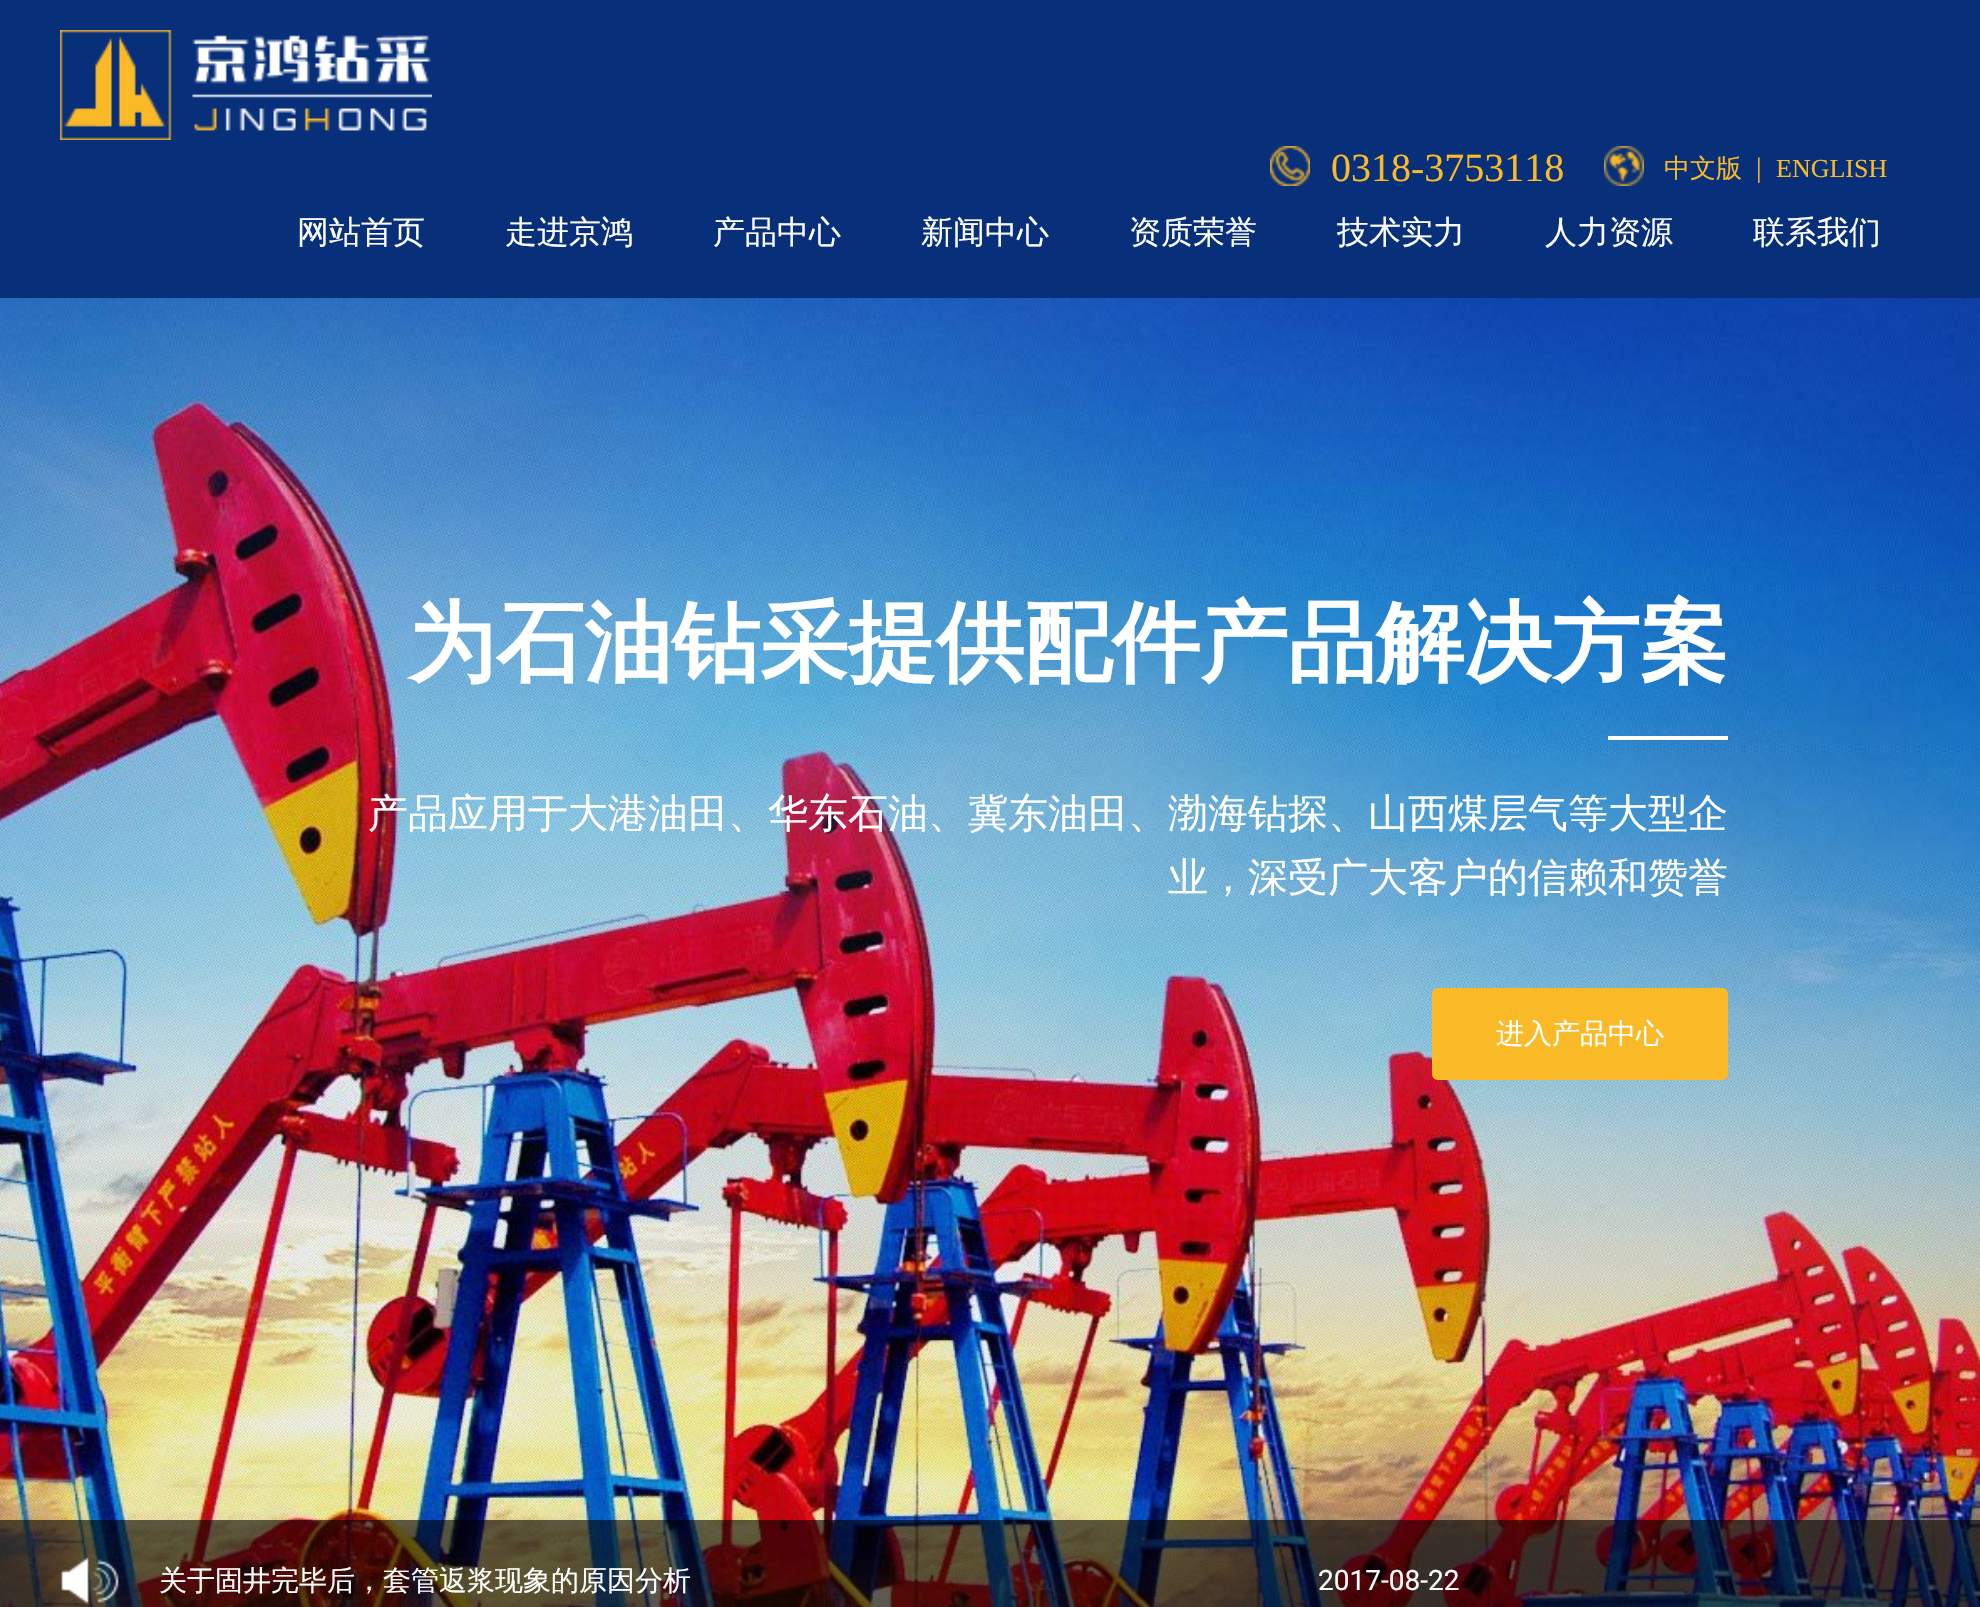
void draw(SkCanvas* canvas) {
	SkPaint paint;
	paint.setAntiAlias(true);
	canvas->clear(0xffffffff);
	paint.setColor(0xff08307a);
	canvas->drawRect(SkRect::MakeXYWH(0, 0, 1980, 298), paint);
	canvas->drawImageRect(SkImages::DeferredFromEncodedData(SkData::MakeFromFileName("img1.png")), SkRect::MakeXYWH(60, 30, 372, 110), SkSamplingOptions());
	canvas->drawImageRect(SkImages::DeferredFromEncodedData(SkData::MakeFromFileName("img2.png")), SkRect::MakeXYWH(1270, 146, 40, 40), SkSamplingOptions());
	SkFont f1(fontMgr->matchFamilyStyle("Liberation Serif", SkFontStyle::Normal()), 40);
	f1.setSubpixel(true);
	paint.setColor(0xfffab927);
	canvas->drawString("0318-3753118", 1331, 181, f1, paint);
	canvas->drawImageRect(SkImages::DeferredFromEncodedData(SkData::MakeFromFileName("img3.png")), SkRect::MakeXYWH(1604, 146, 40, 40), SkSamplingOptions());
	SkFont f2(fontMgr->matchFamilyStyle("WenQuanYi Zen Hei", SkFontStyle(500, SkFontStyle::kNormal_Width, SkFontStyle::kUpright_Slant)), 26);
	f2.setSubpixel(true);
	canvas->drawString("中文版", 1664, 177, f2, paint);
	SkFont f3(fontMgr->matchFamilyStyle("Liberation Serif", SkFontStyle::Normal()), 28);
	f3.setSubpixel(true);
	canvas->drawString("|", 1756, 177, f3, paint);
	SkFont f4(fontMgr->matchFamilyStyle("Liberation Serif", SkFontStyle::Normal()), 26);
	f4.setSubpixel(true);
	canvas->drawString("ENGLISH", 1776, 177, f4, paint);
	SkFont f5(fontMgr->matchFamilyStyle("WenQuanYi Zen Hei", SkFontStyle(500, SkFontStyle::kNormal_Width, SkFontStyle::kUpright_Slant)), 32);
	f5.setSubpixel(true);
	paint.setColor(0xffffffff);
	canvas->drawString("网站首页", 297, 243, f5, paint);
	canvas->drawString("走进京鸿", 505, 243, f5, paint);
	canvas->drawString("产品中心", 713, 243, f5, paint);
	canvas->drawString("新闻中心", 921, 243, f5, paint);
	canvas->drawString("资质荣誉", 1129, 243, f5, paint);
	canvas->drawString("技术实力", 1337, 243, f5, paint);
	canvas->drawString("人力资源", 1545, 243, f5, paint);
	canvas->drawString("联系我们", 1753, 243, f5, paint);
	canvas->drawImageRect(SkImages::DeferredFromEncodedData(SkData::MakeFromFileName("img4.png")), SkRect::MakeXYWH(0, 298, 1980, 1309), SkSamplingOptions());
	SkFont f6(fontMgr->matchFamilyStyle("WenQuanYi Zen Hei", SkFontStyle::Bold()), 88);
	f6.setSubpixel(true);
	canvas->drawString("为石油钻采提供配件产品解决方案", 408, 673, f6, paint);
	canvas->drawRect(SkRect::MakeXYWH(1608, 736, 120, 4), paint);
	SkFont f7(fontMgr->matchFamilyStyle("WenQuanYi Zen Hei", SkFontStyle(500, SkFontStyle::kNormal_Width, SkFontStyle::kUpright_Slant)), 40);
	f7.setSubpixel(true);
	canvas->drawString("产品应用于大港油田、华东石油、冀东油田、渤海钻探、山西煤层气等大型企", 368, 827, f7, paint);
	canvas->drawString("业，深受广大客户的信赖和赞誉", 1168, 891, f7, paint);
	paint.setColor(0xfffab927);
	canvas->drawRoundRect(SkRect::MakeXYWH(1432, 988, 296, 92), 6, 6, paint);
	SkFont f8(fontMgr->matchFamilyStyle("WenQuanYi Zen Hei", SkFontStyle(500, SkFontStyle::kNormal_Width, SkFontStyle::kUpright_Slant)), 28);
	f8.setSubpixel(true);
	paint.setColor(0xffffffff);
	canvas->drawString("进入产品中心", 1496, 1043, f8, paint);
	paint.setColor(0x99000000);
	canvas->drawRect(SkRect::MakeXYWH(0, 1520, 1980, 87), paint);
	canvas->drawImageRect(SkImages::DeferredFromEncodedData(SkData::MakeFromFileName("img5.png")), SkRect::MakeXYWH(61, 1557, 58, 48), SkSamplingOptions());
	paint.setColor(0xffffffff);
	canvas->drawString("关于固井完毕后，套管返浆现象的原因分析", 159, 1590, f8, paint);
	SkFont f9(fontMgr->matchFamilyStyle("Roboto", SkFontStyle::Normal()), 28);
	f9.setSubpixel(true);
	canvas->drawString("2017-08-22", 1318, 1590, f9, paint);
}
